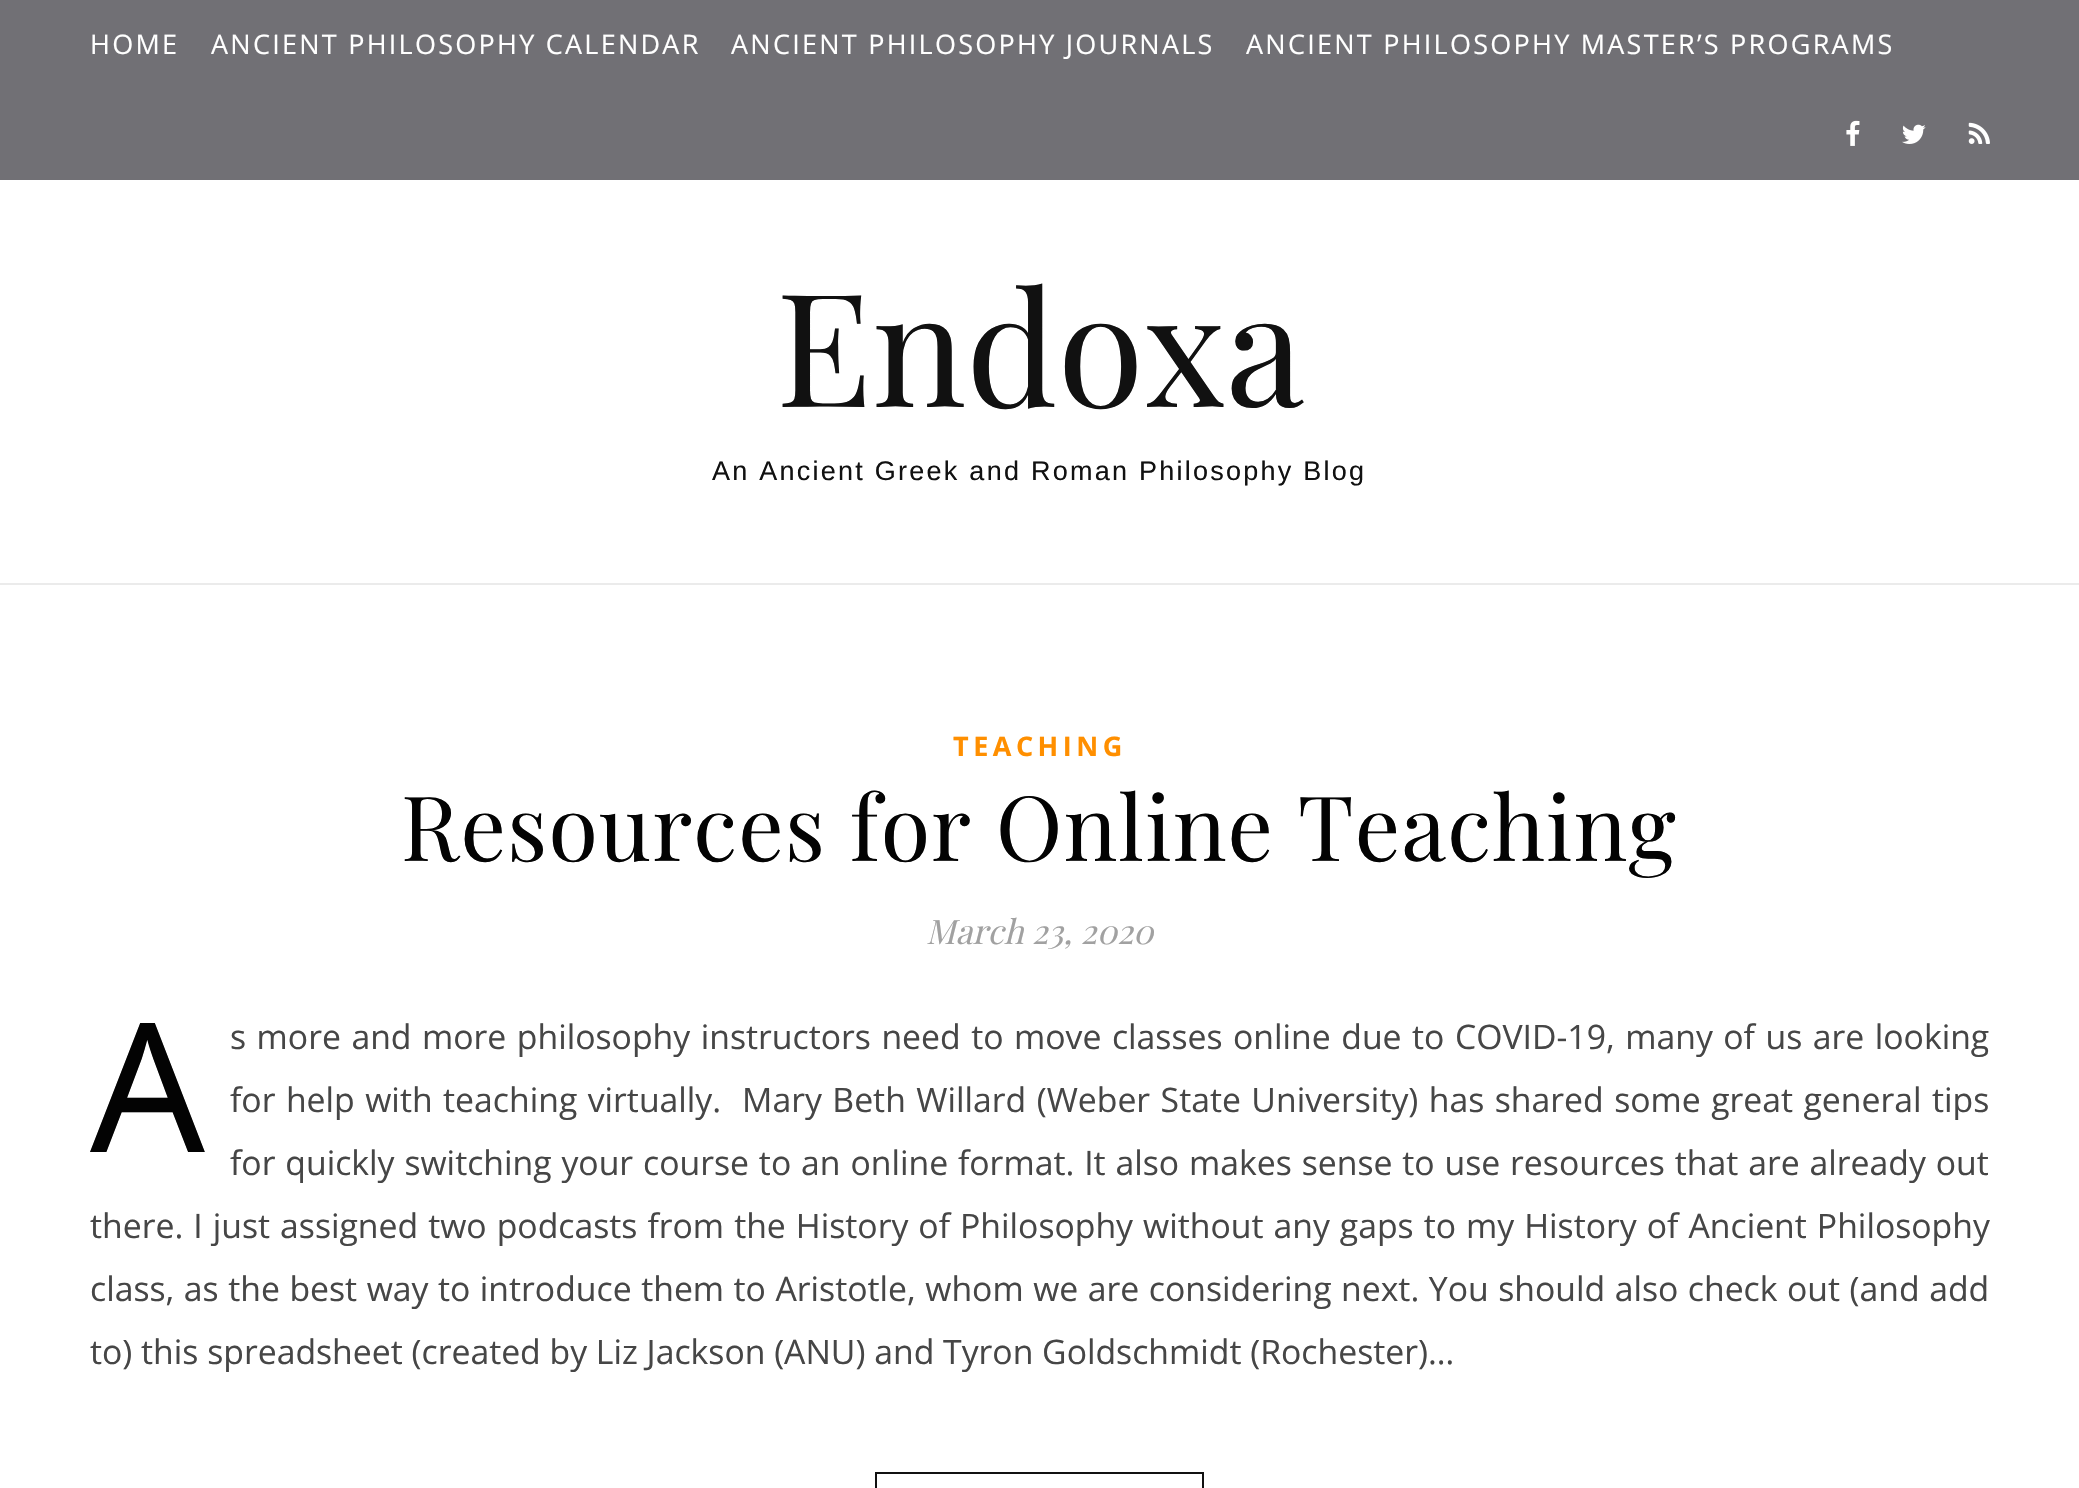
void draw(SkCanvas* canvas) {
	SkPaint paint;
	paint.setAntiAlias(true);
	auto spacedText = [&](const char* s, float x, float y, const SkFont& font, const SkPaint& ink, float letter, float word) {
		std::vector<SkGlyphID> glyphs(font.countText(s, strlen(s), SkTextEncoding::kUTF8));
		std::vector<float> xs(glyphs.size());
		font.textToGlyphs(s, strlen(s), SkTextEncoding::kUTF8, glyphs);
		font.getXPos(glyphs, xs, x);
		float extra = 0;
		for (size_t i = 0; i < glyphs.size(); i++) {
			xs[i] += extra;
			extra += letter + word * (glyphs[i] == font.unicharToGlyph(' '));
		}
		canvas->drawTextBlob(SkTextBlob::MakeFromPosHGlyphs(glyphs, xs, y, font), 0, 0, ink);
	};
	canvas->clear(0xffffffff);
	paint.setColor(0xff717075);
	canvas->drawRect(SkRect::MakeXYWH(0, 0, 2079, 180), paint);
	SkFont f1(fontMgr->matchFamilyStyle("Open Sans", SkFontStyle::Normal()), 27);
	f1.setSubpixel(true);
	paint.setColor(0xffffffff);
	spacedText("HOME", 90, 54, f1, paint, 2.25, 0);
	spacedText("ANCIENT PHILOSOPHY CALENDAR", 211, 54, f1, paint, 2.25, 0);
	spacedText("ANCIENT PHILOSOPHY JOURNALS", 731, 54, f1, paint, 2.25, 0);
	spacedText("ANCIENT PHILOSOPHY MASTER’S PROGRAMS", 1246, 54, f1, paint, 2.25, 0);
	canvas->drawImageRect(SkImages::DeferredFromEncodedData(SkData::MakeFromFileName("img1.png")), SkRect::MakeXYWH(1846, 120, 14, 26), SkSamplingOptions());
	canvas->drawImageRect(SkImages::DeferredFromEncodedData(SkData::MakeFromFileName("img2.png")), SkRect::MakeXYWH(1902, 124, 24, 20), SkSamplingOptions());
	canvas->drawImageRect(SkImages::DeferredFromEncodedData(SkData::MakeFromFileName("img3.png")), SkRect::MakeXYWH(1968, 122, 22, 22), SkSamplingOptions());
	paint.setColor(0xffebebeb);
	canvas->drawRect(SkRect::MakeXYWH(0, 583, 2079, 2), paint);
	SkFont f2(fontMgr->matchFamilyStyle("Playfair Display", SkFontStyle::Normal()), 157.5);
	f2.setSubpixel(true);
	paint.setColor(0xff111111);
	canvas->drawString("Endoxa", 776, 407, f2, paint);
	SkFont f3(fontMgr->matchFamilyStyle("Liberation Sans", SkFontStyle::Normal()), 27);
	f3.setSubpixel(true);
	spacedText("An Ancient Greek and Roman Philosophy Blog", 712, 480, f3, paint, 2.25, 0);
	SkFont f4(fontMgr->matchFamilyStyle("Open Sans", SkFontStyle::Bold()), 27);
	f4.setSubpixel(true);
	paint.setColor(0xffff8f00);
	spacedText("TEACHING", 953, 756, f4, paint, 4.5, 0);
	SkFont f5(fontMgr->matchFamilyStyle("Playfair Display", SkFontStyle::Normal()), 90);
	f5.setSubpixel(true);
	paint.setColor(0xff030303);
	spacedText("Resources for Online Teaching", 401, 861, f5, paint, 1.1, 0);
	SkFont f6(fontMgr->matchFamilyStyle("Playfair Display", SkFontStyle::Italic()), 33.75);
	f6.setSubpixel(true);
	paint.setColor(0xffa1a1a1);
	canvas->drawString("March 23, 2020", 926, 944, f6, paint);
	SkFont f7(fontMgr->matchFamilyStyle("Noto Sans", SkFontStyle::Normal()), 180);
	f7.setSubpixel(true);
	paint.setColor(0xff030303);
	canvas->drawString("A", 90, 1152, f7, paint);
	SkFont f8(fontMgr->matchFamilyStyle("Open Sans", SkFontStyle::Normal()), 33.75);
	f8.setSubpixel(true);
	paint.setColor(0xff464646);
	spacedText("s more and more philosophy instructors need to move classes online due to COVID-19, many of us are looking", 230, 1049, f8, paint, 0, 1.75);
	spacedText("for help with teaching virtually.  Mary Beth Willard (Weber State University) has shared some great general tips", 230, 1112, f8, paint, 0, 1.7);
	spacedText("for quickly switching your course to an online format. It also makes sense to use resources that are already out", 230, 1175, f8, paint, 0, 1.1);
	spacedText("there. I just assigned two podcasts from the History of Philosophy without any gaps to my History of Ancient Philosophy", 90, 1238, f8, paint, 0, 1.25);
	spacedText("class, as the best way to introduce them to Aristotle, whom we are considering next. You should also check out (and add", 90, 1301, f8, paint, 0, 0.75);
	canvas->drawString("to) this spreadsheet (created by Liz Jackson (ANU) and Tyron Goldschmidt (Rochester)…", 90, 1364, f8, paint);
	paint.setStroke(true);
	paint.setStrokeWidth(2);
	paint.setColor(0xff111111);
	canvas->drawRect(SkRect::MakeXYWH(876, 1473, 327, 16), paint);
}
